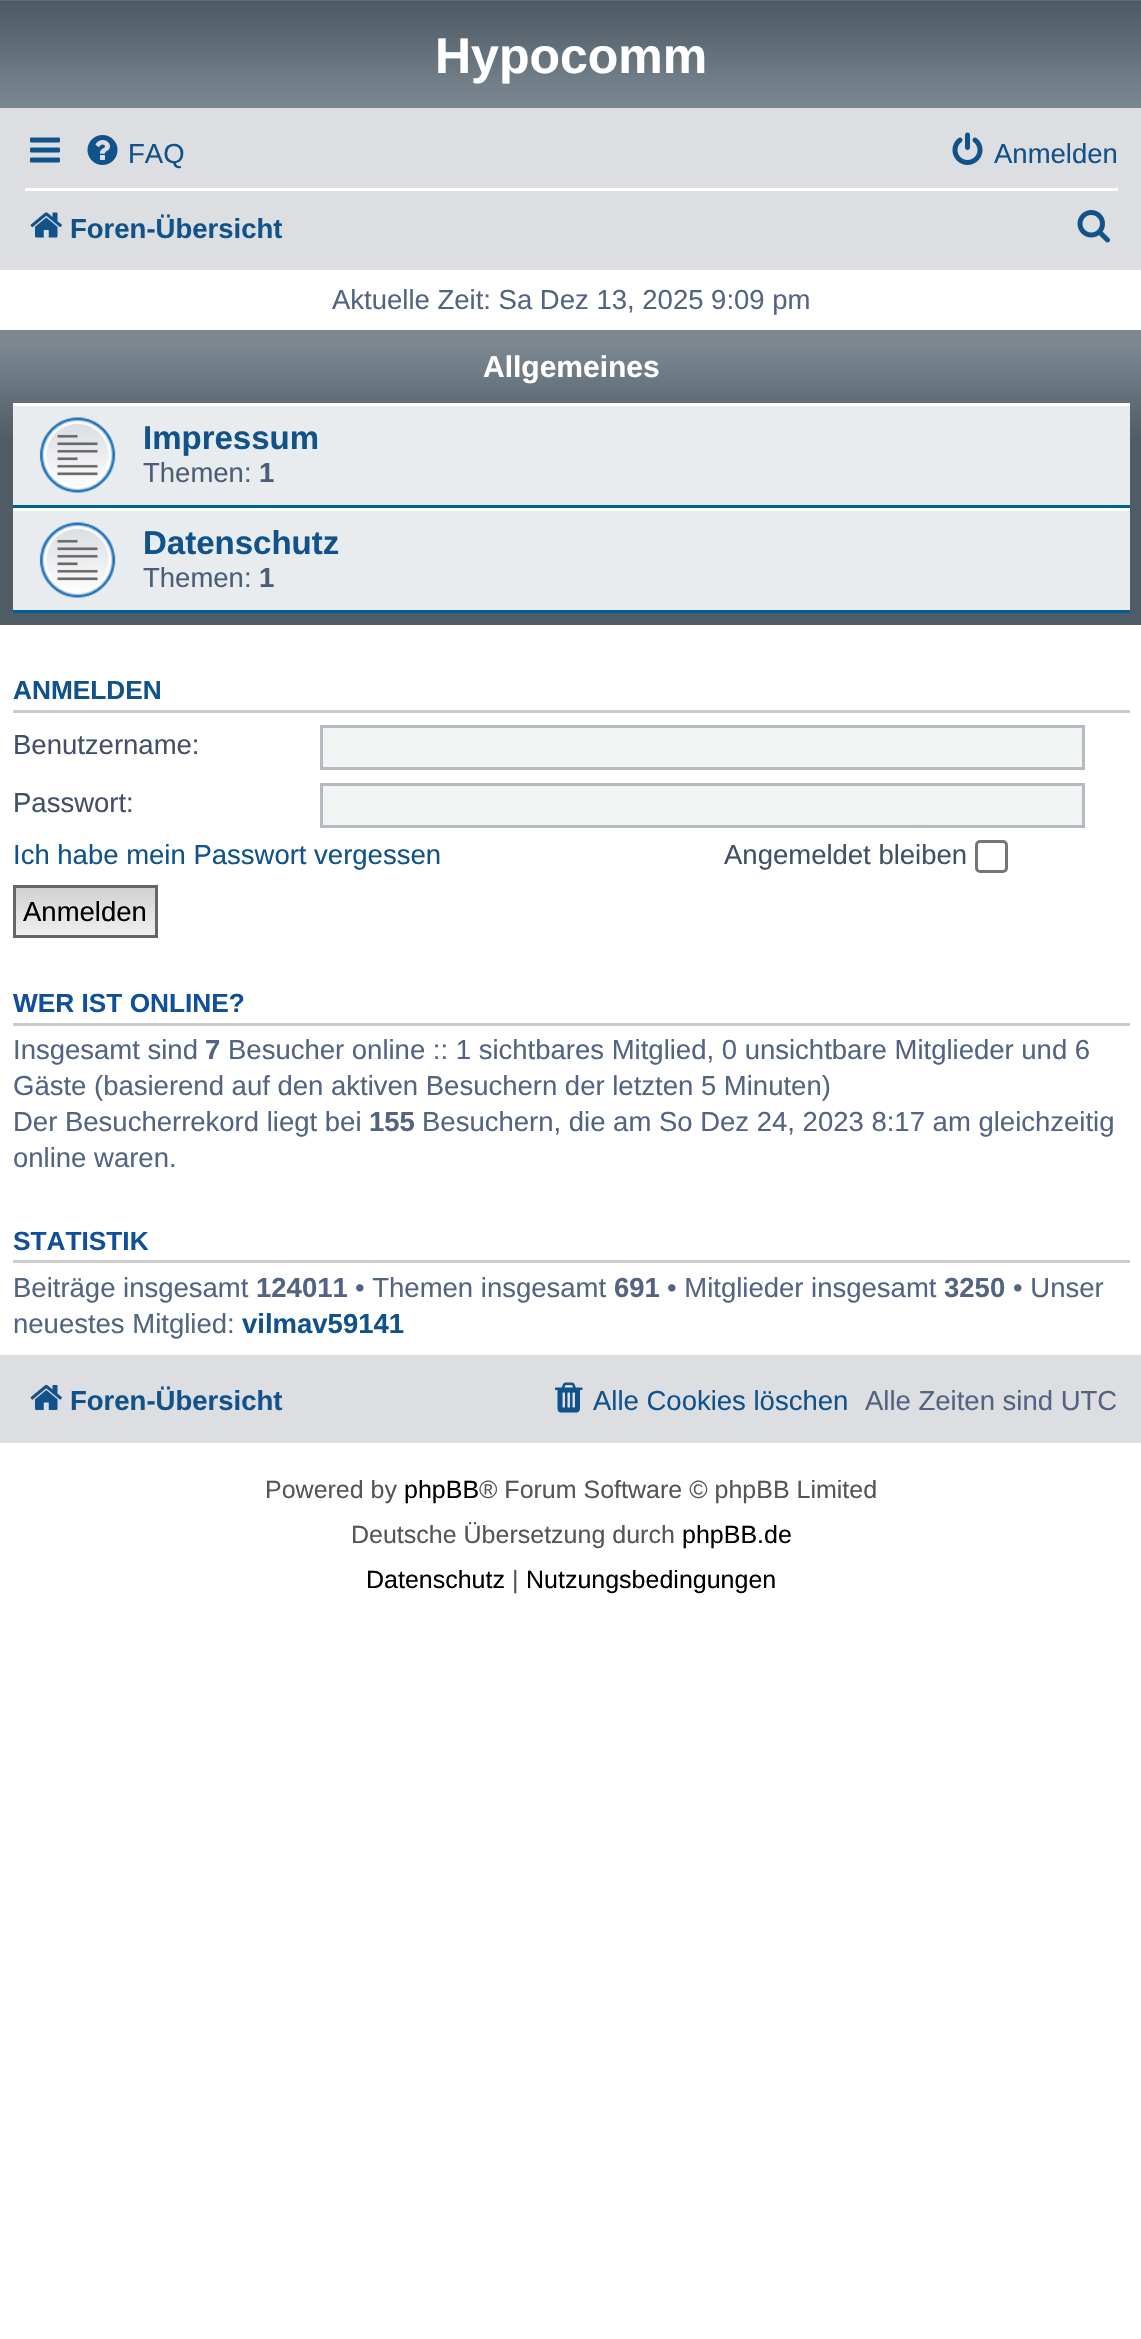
void draw(SkCanvas* canvas) {
	SkPaint paint;
	paint.setAntiAlias(true);
	canvas->clear(0xffffffff);
	{
		const SkColor colors[] = {0xff6e777f, 0xff505c65, 0xff56626b, 0xff737f88, 0xff7c8891};
		const float stops[] = {0, 0.01, 0.2, 0.75, 1};
		const SkPoint ends[] = {{571, 0}, {571, 110}};
		paint.setShader(SkGradientShader::MakeLinear(ends, colors, stops, 5, SkTileMode::kClamp));
		paint.setAlpha(255);
	}
	canvas->drawRect(SkRect::MakeXYWH(0, 0, 1141, 108), paint);
	SkFont f1(fontMgr->matchFamilyStyle("Liberation Sans", SkFontStyle::Bold()), 50);
	f1.setSubpixel(true);
	paint.setShader(nullptr);
	paint.setColor(0xffffffff);
	canvas->drawString("Hypocomm", 435, 73, f1, paint);
	paint.setColor(0xffdcdee2);
	canvas->drawRect(SkRect::MakeXYWH(0, 108, 1141, 162), paint);
	canvas->drawImageRect(SkImages::DeferredFromEncodedData(SkData::MakeFromFileName("img1.png")), SkRect::MakeXYWH(30, 137, 30, 26), SkSamplingOptions());
	canvas->drawImageRect(SkImages::DeferredFromEncodedData(SkData::MakeFromFileName("img2.png")), SkRect::MakeXYWH(87, 135, 31, 30), SkSamplingOptions());
	SkFont f2(fontMgr->matchFamilyStyle("Liberation Sans", SkFontStyle::Normal()), 27.5);
	f2.setSubpixel(true);
	paint.setColor(0xff105289);
	canvas->drawString("FAQ", 128, 163, f2, paint);
	canvas->drawImageRect(SkImages::DeferredFromEncodedData(SkData::MakeFromFileName("img3.png")), SkRect::MakeXYWH(952, 132, 31, 33), SkSamplingOptions());
	canvas->drawString("Anmelden", 994, 163, f2, paint);
	paint.setColor(0xffffffff);
	canvas->drawRect(SkRect::MakeXYWH(25, 188, 1093, 3), paint);
	canvas->drawImageRect(SkImages::DeferredFromEncodedData(SkData::MakeFromFileName("img4.png")), SkRect::MakeXYWH(30, 212, 32, 26), SkSamplingOptions());
	SkFont f3(fontMgr->matchFamilyStyle("Liberation Sans", SkFontStyle::Bold()), 27.5);
	f3.setSubpixel(true);
	paint.setColor(0xff105289);
	canvas->drawString("Foren-Übersicht", 70, 238, f3, paint);
	canvas->drawImageRect(SkImages::DeferredFromEncodedData(SkData::MakeFromFileName("img5.png")), SkRect::MakeXYWH(1077, 210, 33, 33), SkSamplingOptions());
	paint.setColor(0xff536482);
	canvas->drawString("Aktuelle Zeit: Sa Dez 13, 2025 9:09 pm", 332, 309, f2, paint);
	{
		const SkColor colors[] = {0xff7c8891, 0xff7c8790, 0xff76828b, 0xff5b666f, 0xff505c65, 0xff505c65};
		const float stops[] = {0, 0.04, 0.1, 0.29, 0.38, 1};
		const SkPoint ends[] = {{571, 330}, {571, 625}};
		paint.setShader(SkGradientShader::MakeLinear(ends, colors, stops, 6, SkTileMode::kClamp));
		paint.setAlpha(255);
	}
	canvas->drawRect(SkRect::MakeXYWH(0, 330, 1141, 295), paint);
	SkFont f4(fontMgr->matchFamilyStyle("Liberation Sans", SkFontStyle::Bold()), 30);
	f4.setSubpixel(true);
	paint.setShader(nullptr);
	paint.setColor(0xffffffff);
	canvas->drawString("Allgemeines", 483, 377, f4, paint);
	paint.setColor(0xffe8ecee);
	canvas->drawRect(SkRect::MakeXYWH(13, 406, 1117, 99), paint);
	paint.setColor(0xffffffff);
	canvas->drawRect(SkRect::MakeXYWH(13, 403, 1117, 3), paint);
	paint.setColor(0xff00608f);
	canvas->drawRect(SkRect::MakeXYWH(13, 505, 1117, 3), paint);
	canvas->drawImageRect(SkImages::DeferredFromEncodedData(SkData::MakeFromFileName("img6.png")), SkRect::MakeXYWH(39, 417, 77, 76), SkSamplingOptions());
	SkFont f5(fontMgr->matchFamilyStyle("Liberation Sans", SkFontStyle::Bold()), 33);
	f5.setSubpixel(true);
	paint.setColor(0xff105289);
	canvas->drawString("Impressum", 143, 449, f5, paint);
	paint.setColor(0xff4c5d77);
	canvas->drawString("Themen:", 143, 482, f2, paint);
	canvas->drawString("1", 259, 482, f3, paint);
	paint.setColor(0xffe8ecee);
	canvas->drawRect(SkRect::MakeXYWH(13, 511, 1117, 99), paint);
	paint.setColor(0xffffffff);
	canvas->drawRect(SkRect::MakeXYWH(13, 508, 1117, 3), paint);
	paint.setColor(0xff00608f);
	canvas->drawRect(SkRect::MakeXYWH(13, 610, 1117, 3), paint);
	canvas->drawImageRect(SkImages::DeferredFromEncodedData(SkData::MakeFromFileName("img6.png")), SkRect::MakeXYWH(39, 522, 77, 76), SkSamplingOptions());
	paint.setColor(0xff105289);
	canvas->drawString("Datenschutz", 143, 554, f5, paint);
	paint.setColor(0xff4c5d77);
	canvas->drawString("Themen:", 143, 587, f2, paint);
	canvas->drawString("1", 259, 587, f3, paint);
	paint.setColor(0xffcccccc);
	canvas->drawRect(SkRect::MakeXYWH(13, 710, 1117, 3), paint);
	SkFont f6(fontMgr->matchFamilyStyle("Liberation Sans", SkFontStyle::Bold()), 26.25);
	f6.setSubpixel(true);
	paint.setColor(0xff105289);
	canvas->drawString("ANMELDEN", 13, 699, f6, paint);
	paint.setColor(0xff425067);
	canvas->drawString("Benutzername:", 13, 754, f2, paint);
	paint.setColor(0xfff2f3f3);
	canvas->drawRect(SkRect::MakeXYWH(321.5, 726.5, 762, 42), paint);
	paint.setStroke(true);
	paint.setStrokeWidth(3);
	paint.setColor(0xffb4bac0);
	canvas->drawRect(SkRect::MakeXYWH(321.5, 726.5, 762, 42), paint);
	paint.setStroke(false);
	paint.setColor(0xff425067);
	canvas->drawString("Passwort:", 13, 812, f2, paint);
	paint.setColor(0xfff2f3f3);
	canvas->drawRect(SkRect::MakeXYWH(321.5, 784.5, 762, 42), paint);
	paint.setStroke(true);
	paint.setColor(0xffb4bac0);
	canvas->drawRect(SkRect::MakeXYWH(321.5, 784.5, 762, 42), paint);
	paint.setStroke(false);
	paint.setColor(0xff105289);
	canvas->drawString("Ich habe mein Passwort vergessen", 13, 864, f2, paint);
	paint.setColor(0xff425067);
	canvas->drawString("Angemeldet bleiben", 724, 864, f2, paint);
	paint.setStroke(true);
	paint.setColor(0xff767676);
	canvas->drawRoundRect(SkRect::MakeXYWH(976.5, 841.5, 30, 30), 3.5, 3.5, paint);
	paint.setStroke(false);
	{
		const SkColor colors[] = {0xffd2d2d2, 0xffefefef};
		const float stops[] = {0, 1};
		const SkPoint ends[] = {{85, 888}, {85, 935}};
		paint.setShader(SkGradientShader::MakeLinear(ends, colors, stops, 2, SkTileMode::kClamp));
		paint.setAlpha(255);
	}
	canvas->drawRect(SkRect::MakeXYWH(16, 888, 139, 47), paint);
	paint.setStroke(true);
	paint.setShader(nullptr);
	paint.setColor(0xff666666);
	canvas->drawRect(SkRect::MakeXYWH(14.5, 886.5, 142, 50), paint);
	paint.setStroke(false);
	paint.setColor(0xff000000);
	canvas->drawString("Anmelden", 23, 921, f2, paint);
	paint.setColor(0xffcccccc);
	canvas->drawRect(SkRect::MakeXYWH(13, 1023, 1117, 3), paint);
	paint.setColor(0xff115098);
	canvas->drawString("WER IST ONLINE?", 13, 1012, f6, paint);
	paint.setColor(0xff536482);
	canvas->drawString("Insgesamt sind", 13, 1059, f2, paint);
	canvas->drawString("7", 205, 1059, f3, paint);
	canvas->drawString("Besucher online :: 1 sichtbares Mitglied, 0 unsichtbare Mitglieder und 6", 228, 1059, f2, paint);
	canvas->drawString("Gäste (basierend auf den aktiven Besuchern der letzten 5 Minuten)", 13, 1095, f2, paint);
	canvas->drawString("Der Besucherrekord liegt bei", 13, 1131, f2, paint);
	canvas->drawString("155", 369, 1131, f3, paint);
	canvas->drawString("Besuchern, die am So Dez 24, 2023 8:17 am gleichzeitig", 422, 1131, f2, paint);
	canvas->drawString("online waren.", 13, 1167, f2, paint);
	paint.setColor(0xffcccccc);
	canvas->drawRect(SkRect::MakeXYWH(13, 1260, 1117, 3), paint);
	paint.setColor(0xff115098);
	canvas->drawString("STATISTIK", 13, 1250, f6, paint);
	paint.setColor(0xff536482);
	canvas->drawString("Beiträge insgesamt", 13, 1297, f2, paint);
	canvas->drawString("124011", 256, 1297, f3, paint);
	canvas->drawString("• Themen insgesamt", 355, 1297, f2, paint);
	canvas->drawString("691", 614, 1297, f3, paint);
	canvas->drawString("• Mitglieder insgesamt", 667, 1297, f2, paint);
	canvas->drawString("3250", 944, 1297, f3, paint);
	canvas->drawString("• Unser", 1013, 1297, f2, paint);
	canvas->drawString("neuestes Mitglied:", 13, 1333, f2, paint);
	paint.setColor(0xff105289);
	canvas->drawString("vilmav59141", 242, 1333, f3, paint);
	paint.setColor(0xffdcdee2);
	canvas->drawRect(SkRect::MakeXYWH(0, 1355, 1141, 88), paint);
	canvas->drawImageRect(SkImages::DeferredFromEncodedData(SkData::MakeFromFileName("img7.png")), SkRect::MakeXYWH(30, 1384, 32, 26), SkSamplingOptions());
	paint.setColor(0xff105289);
	canvas->drawString("Foren-Übersicht", 70, 1410, f3, paint);
	canvas->drawImageRect(SkImages::DeferredFromEncodedData(SkData::MakeFromFileName("img8.png")), SkRect::MakeXYWH(555, 1382, 28, 31), SkSamplingOptions());
	canvas->drawString("Alle Cookies löschen", 593, 1410, f2, paint);
	paint.setColor(0xff536482);
	canvas->drawString("Alle Zeiten sind UTC", 865, 1410, f2, paint);
	SkFont f7(fontMgr->matchFamilyStyle("Liberation Sans", SkFontStyle::Normal()), 25);
	f7.setSubpixel(true);
	paint.setColor(0xff555555);
	canvas->drawString("Powered by", 265, 1498, f7, paint);
	paint.setColor(0xff000000);
	canvas->drawString("phpBB", 404, 1498, f7, paint);
	paint.setColor(0xff555555);
	canvas->drawString("® Forum Software © phpBB Limited", 479, 1498, f7, paint);
	canvas->drawString("Deutsche Übersetzung durch", 351, 1543, f7, paint);
	paint.setColor(0xff000000);
	canvas->drawString("phpBB.de", 682, 1543, f7, paint);
	canvas->drawString("Datenschutz", 366, 1588, f7, paint);
	paint.setColor(0xff555555);
	canvas->drawString("|", 512, 1588, f7, paint);
	paint.setColor(0xff000000);
	canvas->drawString("Nutzungsbedingungen", 526, 1588, f7, paint);
}
